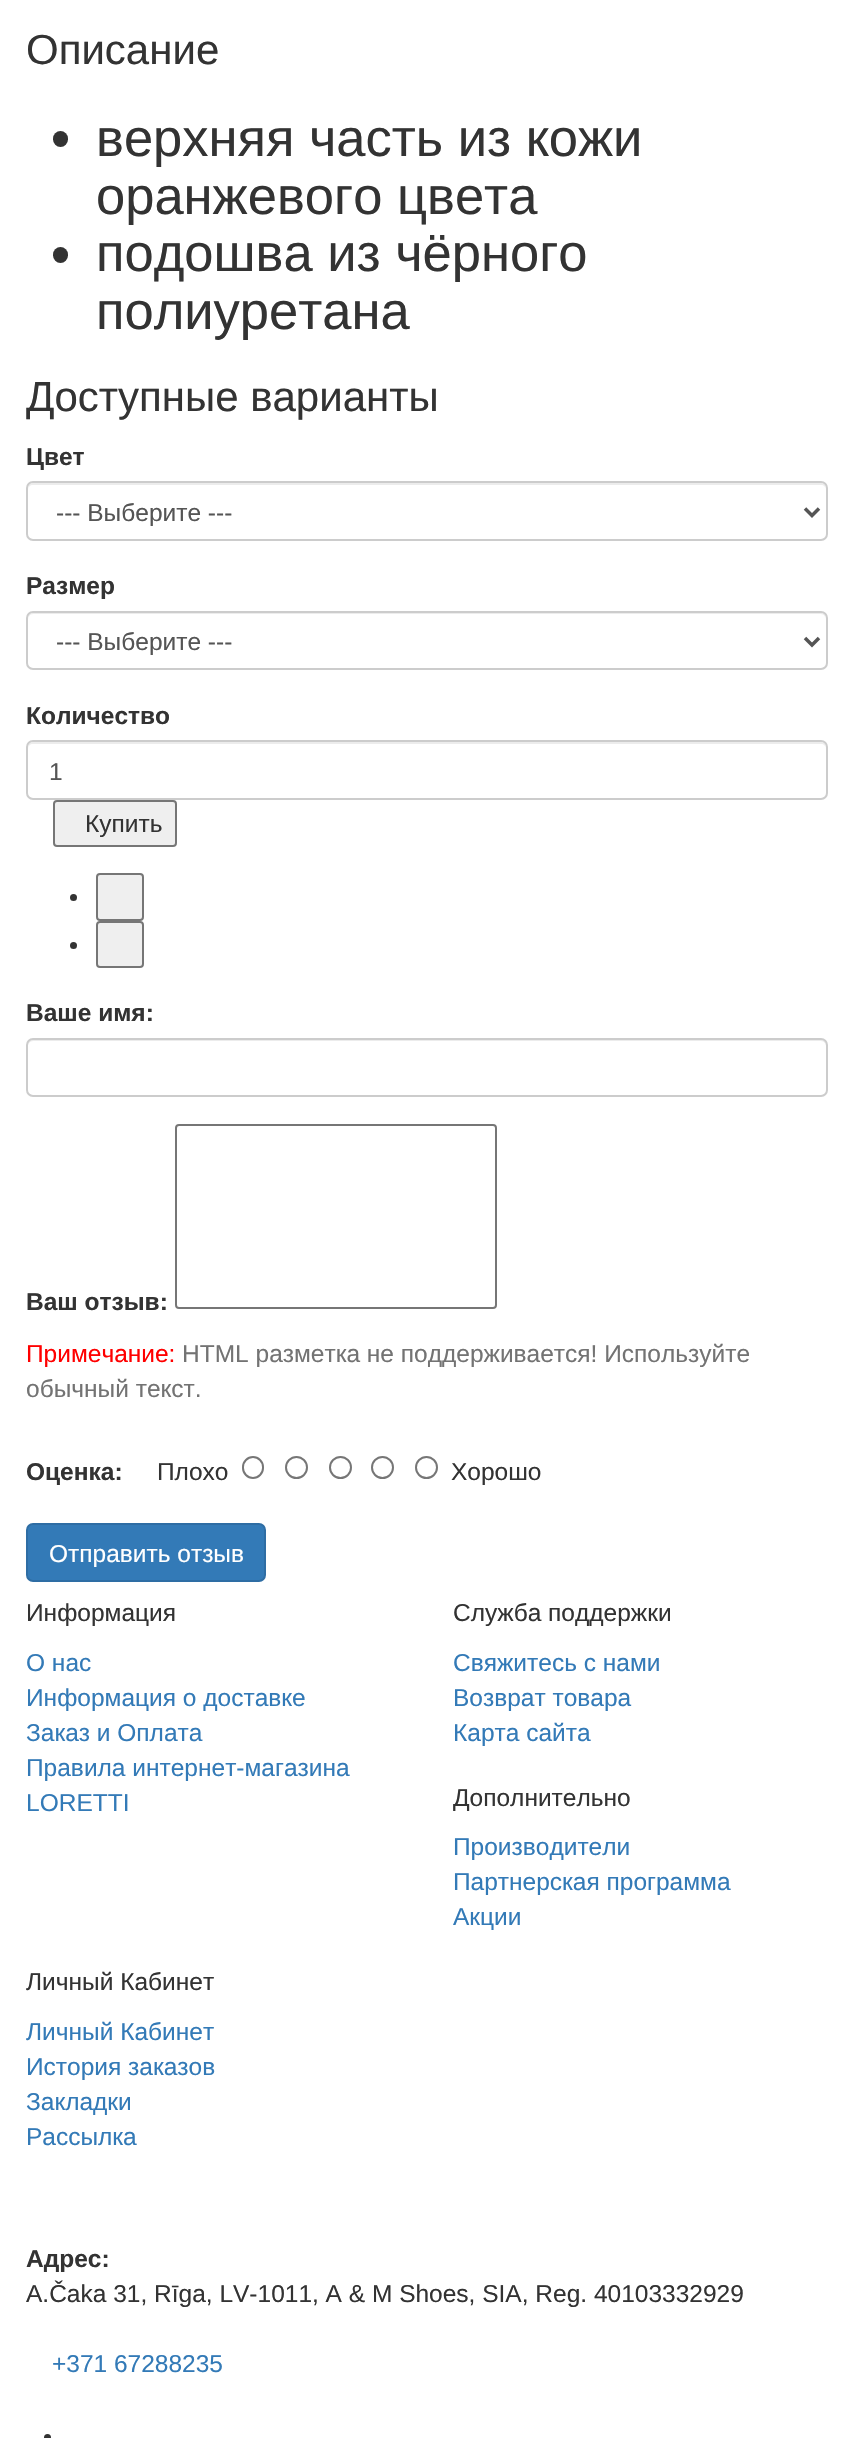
void draw(SkCanvas* canvas) {
	SkPaint paint;
	paint.setAntiAlias(true);
	auto svgPath = [&](const char* data, bool evenOdd = false) {
		SkPath result = *SkParsePath::FromSVGString(data);
		if (evenOdd) result.setFillType(SkPathFillType::kEvenOdd);
		return result;
	};
	canvas->clear(0xffffffff);
	SkFont f1(fontMgr->matchFamilyStyle("Liberation Sans", SkFontStyle::Normal()), 42);
	f1.setSubpixel(true);
	paint.setColor(0xff333333);
	canvas->drawString("Описание", 26, 64, f1, paint);
	canvas->drawRoundRect(SkRect::MakeXYWH(53, 131, 15, 16), 7.5, 7.5, paint);
	SkFont f2(fontMgr->matchFamilyStyle("Liberation Sans", SkFontStyle::Normal()), 52.5);
	f2.setSubpixel(true);
	canvas->drawString("верхняя часть из кожи", 96, 156, f2, paint);
	canvas->drawString("оранжевого цвета", 96, 214, f2, paint);
	canvas->drawRoundRect(SkRect::MakeXYWH(53, 247, 15, 16), 7.5, 7.5, paint);
	canvas->drawString("подошва из чёрного", 96, 271, f2, paint);
	canvas->drawString("полиуретана", 96, 329, f2, paint);
	canvas->drawString("Доступные варианты", 26, 411, f1, paint);
	SkFont f3(fontMgr->matchFamilyStyle("Liberation Sans", SkFontStyle::Bold()), 24.5);
	f3.setSubpixel(true);
	canvas->drawString("Цвет", 26, 465, f3, paint);
	paint.setColor(0xffececec);
	canvas->drawPath(svgPath("M33 485H821C824 485 826 487 826 490C826 487 825 483 821 483H33C29 483 28 487 28 490C28 487 30 485 33 485Z"), paint);
	paint.setStroke(true);
	paint.setStrokeWidth(2);
	paint.setColor(0xffcccccc);
	canvas->drawRoundRect(SkRect::MakeXYWH(27, 482, 800, 58), 6, 6, paint);
	paint.setStrokeWidth(3.5);
	paint.setColor(0xff555555);
	canvas->drawPath(svgPath("M805 508.5L812 515.5L819 508.5"), paint);
	SkFont f4(fontMgr->matchFamilyStyle("Liberation Sans", SkFontStyle::Normal()), 24.5);
	f4.setSubpixel(true);
	paint.setStroke(false);
	canvas->drawString("--- Выберите ---", 56, 521, f4, paint);
	paint.setColor(0xff333333);
	canvas->drawString("Размер", 26, 594, f3, paint);
	paint.setColor(0xffececec);
	canvas->drawPath(svgPath("M33 614H821C824 614 826 617 826 620C826 617 825 613 821 613H33C29 613 28 617 28 620C28 617 30 614 33 614Z"), paint);
	paint.setStroke(true);
	paint.setStrokeWidth(2);
	paint.setColor(0xffcccccc);
	canvas->drawRoundRect(SkRect::MakeXYWH(27, 612, 800, 57), 6, 6, paint);
	paint.setStrokeWidth(3.5);
	paint.setColor(0xff555555);
	canvas->drawPath(svgPath("M805 638L812 645L819 638"), paint);
	paint.setStroke(false);
	canvas->drawString("--- Выберите ---", 56, 650, f4, paint);
	paint.setColor(0xff333333);
	canvas->drawString("Количество", 26, 724, f3, paint);
	paint.setColor(0xffececec);
	canvas->drawPath(svgPath("M33 744H821C824 744 826 746 826 749C826 746 825 742 821 742H33C29 742 28 746 28 749C28 746 30 744 33 744Z"), paint);
	paint.setStroke(true);
	paint.setStrokeWidth(2);
	paint.setColor(0xffcccccc);
	canvas->drawRoundRect(SkRect::MakeXYWH(27, 741, 800, 58), 6, 6, paint);
	paint.setStroke(false);
	paint.setColor(0xff555555);
	canvas->drawString("1", 49, 780, f4, paint);
	paint.setColor(0xffefefef);
	canvas->drawRoundRect(SkRect::MakeXYWH(54, 801, 122, 45), 3, 3, paint);
	paint.setStroke(true);
	paint.setColor(0xff767676);
	canvas->drawRoundRect(SkRect::MakeXYWH(54, 801, 122, 45), 3, 3, paint);
	paint.setStroke(false);
	paint.setColor(0xff333333);
	canvas->drawString("Купить", 85, 832, f4, paint);
	canvas->drawCircle(73.5, 897.5, 3.5, paint);
	paint.setColor(0xffefefef);
	canvas->drawRoundRect(SkRect::MakeXYWH(97, 874, 46, 46), 3, 3, paint);
	paint.setStroke(true);
	paint.setColor(0xff767676);
	canvas->drawRoundRect(SkRect::MakeXYWH(97, 874, 46, 46), 3, 3, paint);
	paint.setStroke(false);
	paint.setColor(0xff333333);
	canvas->drawCircle(73.5, 945.5, 3.5, paint);
	paint.setColor(0xffefefef);
	canvas->drawRoundRect(SkRect::MakeXYWH(97, 922, 46, 45), 3, 3, paint);
	paint.setStroke(true);
	paint.setColor(0xff767676);
	canvas->drawRoundRect(SkRect::MakeXYWH(97, 922, 46, 45), 3, 3, paint);
	paint.setStroke(false);
	paint.setColor(0xff333333);
	canvas->drawString("Ваше имя:", 26, 1021, f3, paint);
	paint.setColor(0xffececec);
	canvas->drawPath(svgPath("M33 1041H821C824 1041 826 1044 826 1046V1045C826 1042 824 1040 821 1040H33C30 1040 28 1042 28 1045V1046C28 1044 30 1041 33 1041Z"), paint);
	paint.setStroke(true);
	paint.setColor(0xffcccccc);
	canvas->drawRoundRect(SkRect::MakeXYWH(27, 1039, 800, 57), 6, 6, paint);
	paint.setStroke(false);
	paint.setColor(0xff333333);
	canvas->drawString("Ваш отзыв:", 26, 1310, f3, paint);
	paint.setStroke(true);
	paint.setColor(0xff767676);
	canvas->drawRoundRect(SkRect::MakeXYWH(176, 1125, 320, 183), 3, 3, paint);
	paint.setStroke(false);
	paint.setColor(0xffff0000);
	canvas->drawString("Примечание:", 26, 1362, f4, paint);
	paint.setColor(0xff737373);
	canvas->drawString("HTML разметка не поддерживается! Используйте", 182, 1362, f4, paint);
	canvas->drawString("обычный текст.", 26, 1397, f4, paint);
	paint.setColor(0xff333333);
	canvas->drawString("Оценка:", 26, 1480, f3, paint);
	canvas->drawString("Плохо", 157, 1480, f4, paint);
	paint.setStroke(true);
	paint.setColor(0xff767676);
	canvas->drawRoundRect(SkRect::MakeXYWH(243, 1457, 20, 21), 10, 10, paint);
	canvas->drawCircle(296.5, 1467.5, 10.5, paint);
	canvas->drawCircle(340.5, 1467.5, 10.5, paint);
	canvas->drawCircle(382.5, 1467.5, 10.5, paint);
	canvas->drawCircle(426.5, 1467.5, 10.5, paint);
	paint.setStroke(false);
	paint.setColor(0xff333333);
	canvas->drawString("Хорошо", 451, 1480, f4, paint);
	paint.setColor(0xff337ab7);
	canvas->drawRoundRect(SkRect::MakeXYWH(27, 1524, 238, 57), 6, 6, paint);
	paint.setStroke(true);
	paint.setColor(0xff2e6da4);
	canvas->drawRoundRect(SkRect::MakeXYWH(27, 1524, 238, 57), 6, 6, paint);
	paint.setStroke(false);
	paint.setColor(0xffffffff);
	canvas->drawString("Отправить отзыв", 49, 1562, f4, paint);
	paint.setColor(0xff333333);
	canvas->drawString("Информация", 26, 1621, f4, paint);
	paint.setColor(0xff337ab7);
	canvas->drawString("O нас", 26, 1671, f4, paint);
	canvas->drawString("Информация о доставке", 26, 1706, f4, paint);
	canvas->drawString("Заказ и Оплата", 26, 1741, f4, paint);
	canvas->drawString("Правила интернет-магазина", 26, 1776, f4, paint);
	canvas->drawString("LORETTI", 26, 1811, f4, paint);
	paint.setColor(0xff333333);
	canvas->drawString("Служба поддержки", 453, 1621, f4, paint);
	paint.setColor(0xff337ab7);
	canvas->drawString("Свяжитесь с нами", 453, 1671, f4, paint);
	canvas->drawString("Возврат товара", 453, 1706, f4, paint);
	canvas->drawString("Карта сайта", 453, 1741, f4, paint);
	paint.setColor(0xff333333);
	canvas->drawString("Дополнительно", 453, 1806, f4, paint);
	paint.setColor(0xff337ab7);
	canvas->drawString("Производители", 453, 1855, f4, paint);
	canvas->drawString("Партнерская программа", 453, 1890, f4, paint);
	canvas->drawString("Акции", 453, 1925, f4, paint);
	paint.setColor(0xff333333);
	canvas->drawString("Личный Кабинет", 26, 1990, f4, paint);
	paint.setColor(0xff337ab7);
	canvas->drawString("Личный Кабинет", 26, 2040, f4, paint);
	canvas->drawString("История заказов", 26, 2075, f4, paint);
	canvas->drawString("Закладки", 26, 2110, f4, paint);
	canvas->drawString("Рассылка", 26, 2145, f4, paint);
	paint.setColor(0xff333333);
	canvas->drawString("Адрес:", 26, 2267, f3, paint);
	canvas->drawString("A.Čaka 31, Rīga, LV-1011, A & M Shoes, SIA, Reg. 40103332929", 26, 2302, f4, paint);
	paint.setColor(0xff337ab7);
	canvas->drawString("+371 67288235", 52, 2372, f4, paint);
	paint.setColor(0xff333333);
	canvas->drawCircle(47.5, 2437.5, 3.5, paint);
}
